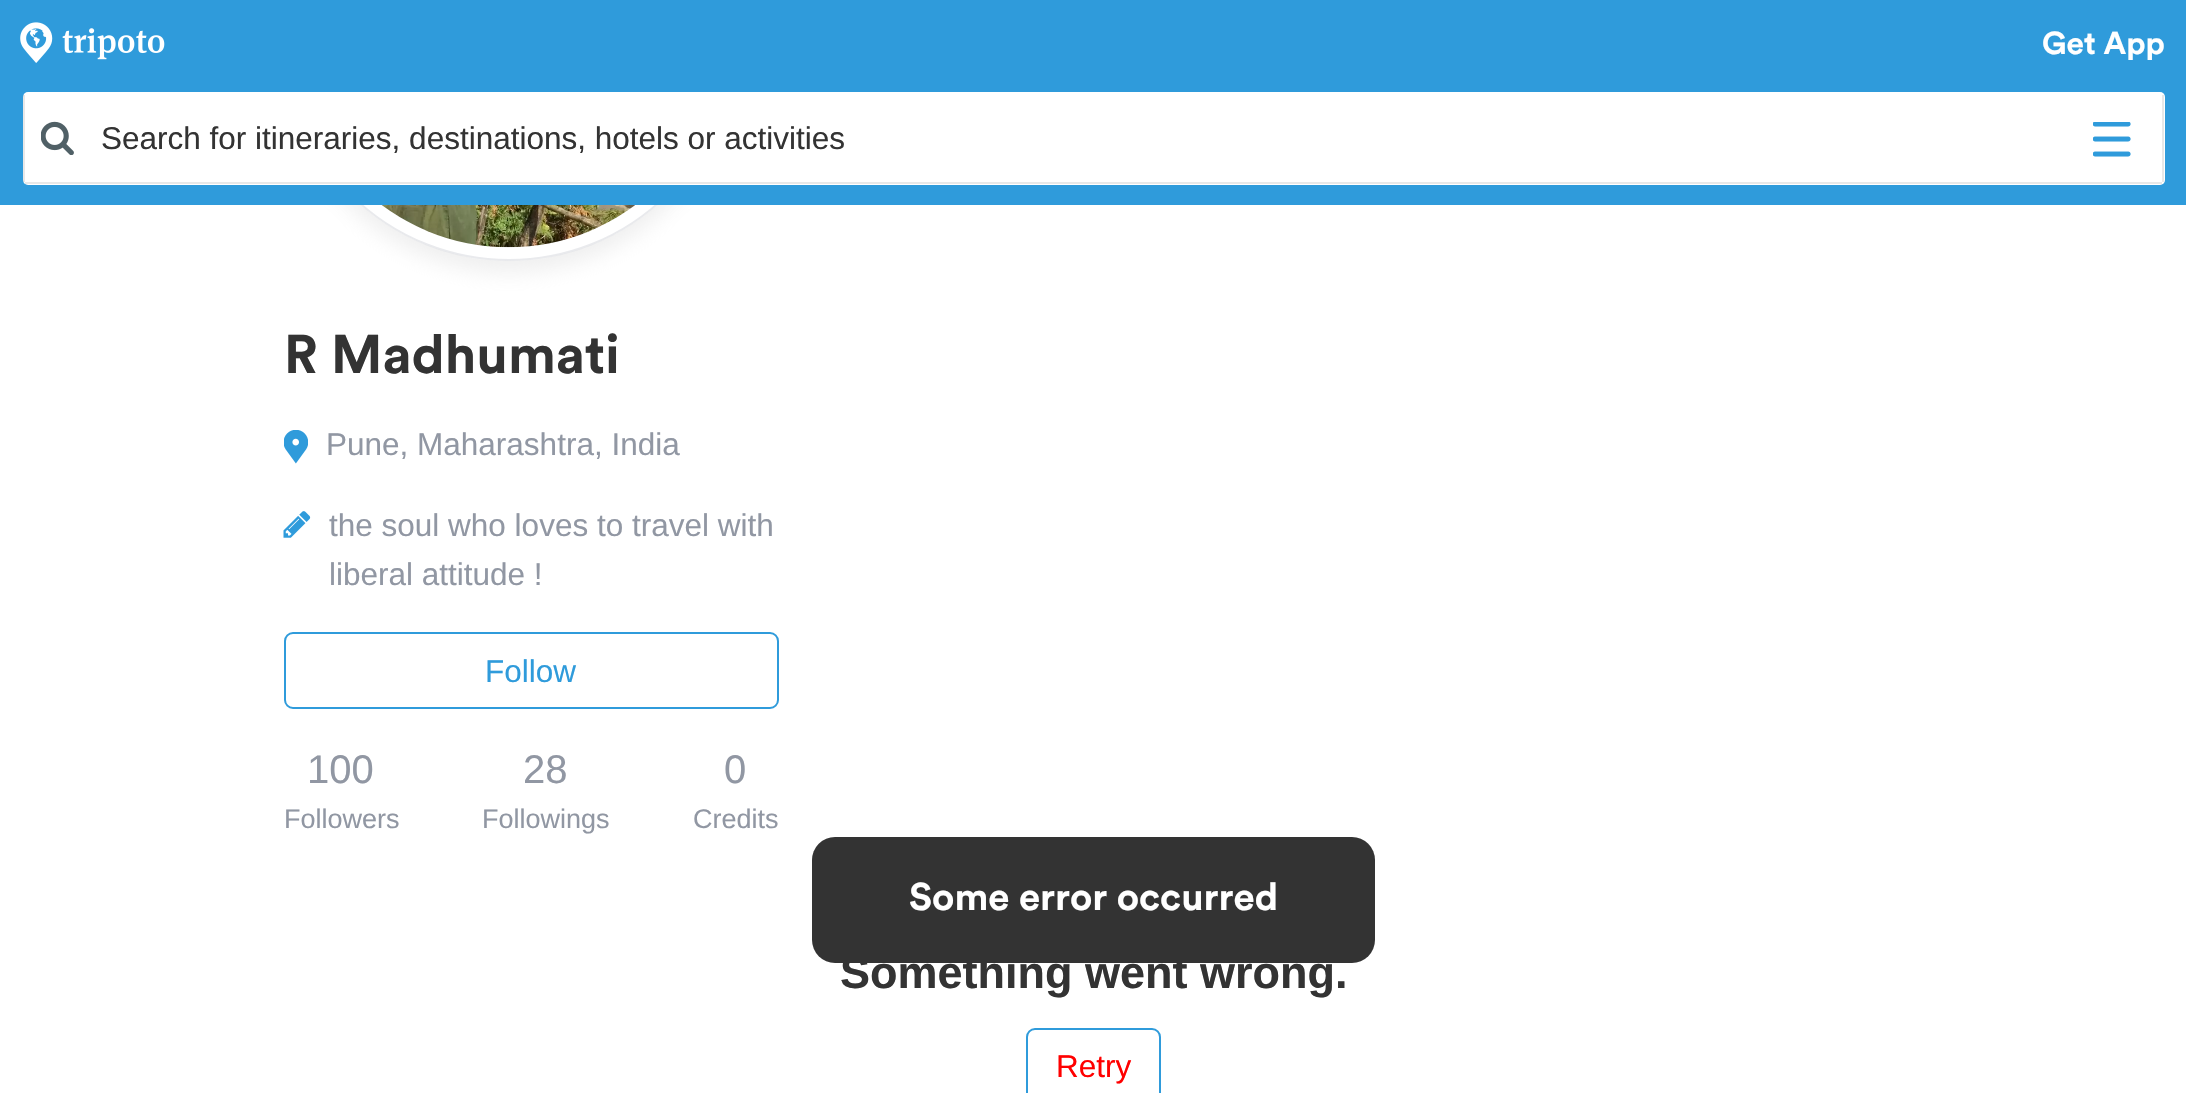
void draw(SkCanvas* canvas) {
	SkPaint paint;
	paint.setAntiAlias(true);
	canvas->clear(0xffffffff);
	paint.setColor(0x80dddddd);
	paint.setMaskFilter(SkMaskFilter::MakeBlur(kNormal_SkBlurStyle, 11));
	canvas->drawRoundRect(SkRect::MakeXYWH(284, -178, 450, 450), 225, 225, paint);
	paint.setMaskFilter(nullptr);
	paint.setColor(0xffffffff);
	canvas->drawCircle(509, 36, 225, paint);
	paint.setStroke(true);
	paint.setStrokeWidth(2);
	paint.setColor(0x339197a3);
	canvas->drawCircle(509, 36, 224, paint);
	paint.setStroke(false);
	paint.setColor(0xff2f9bdb);
	canvas->drawRect(SkRect::MakeXYWH(0, 0, 2186, 205), paint);
	canvas->drawImageRect(SkImages::DeferredFromEncodedData(SkData::MakeFromFileName("img1.png")), SkRect::MakeXYWH(20, 22, 145, 41), SkSamplingOptions());
	SkFont f1(fontMgr->matchFamilyStyle("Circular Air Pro", SkFontStyle::Bold()), 31.5);
	f1.setSubpixel(true);
	paint.setColor(0xffffffff);
	canvas->drawString("Get App", 2042, 54, f1, paint);
	canvas->drawRoundRect(SkRect::MakeXYWH(23, 92, 2142, 93), 5, 5, paint);
	canvas->drawImageRect(SkImages::DeferredFromEncodedData(SkData::MakeFromFileName("img2.png")), SkRect::MakeXYWH(41, 121, 33, 34), SkSamplingOptions());
	paint.setColor(0xffe8e8e8);
	canvas->drawRect(SkRect::MakeXYWH(2162, 95, 2, 87), paint);
	canvas->drawRect(SkRect::MakeXYWH(25, 182, 2137, 2), paint);
	paint.setColor(0x17000000);
	canvas->drawRect(SkRect::MakeXYWH(23, 95, 2, 87), paint);
	SkFont f2(fontMgr->matchFamilyStyle("Liberation Sans", SkFontStyle::Normal()), 31.5);
	f2.setSubpixel(true);
	paint.setColor(0xff333333);
	canvas->drawString("Search for itineraries, destinations, hotels or activities", 101, 149, f2, paint);
	canvas->drawImageRect(SkImages::DeferredFromEncodedData(SkData::MakeFromFileName("img3.png")), SkRect::MakeXYWH(2093, 122, 38, 35), SkSamplingOptions());
	canvas->drawImageRect(SkImages::DeferredFromEncodedData(SkData::MakeFromFileName("img4.png")), SkRect::MakeXYWH(381, 205, 254, 43), SkSamplingOptions());
	SkFont f3(fontMgr->matchFamilyStyle("Circular Air Pro", SkFontStyle::Bold()), 54);
	f3.setSubpixel(true);
	canvas->drawString("R Madhumati", 284, 373, f3, paint);
	canvas->drawImageRect(SkImages::DeferredFromEncodedData(SkData::MakeFromFileName("img5.png")), SkRect::MakeXYWH(284, 430, 24, 34), SkSamplingOptions());
	paint.setColor(0xff9197a3);
	canvas->drawString("Pune, Maharashtra, India", 326, 455, f2, paint);
	canvas->drawImageRect(SkImages::DeferredFromEncodedData(SkData::MakeFromFileName("img6.png")), SkRect::MakeXYWH(283, 511, 28, 27), SkSamplingOptions());
	canvas->drawString("the soul who loves to travel with", 329, 536, f2, paint);
	canvas->drawString("liberal attitude !", 329, 585, f2, paint);
	paint.setStroke(true);
	paint.setColor(0xff2f9bdb);
	canvas->drawRoundRect(SkRect::MakeXYWH(285, 633, 493, 75), 8, 8, paint);
	paint.setStroke(false);
	canvas->drawString("Follow", 485, 682, f2, paint);
	SkFont f4(fontMgr->matchFamilyStyle("Liberation Sans", SkFontStyle::Normal()), 40);
	f4.setSubpixel(true);
	paint.setColor(0xff9197a3);
	canvas->drawString("100", 307, 783, f4, paint);
	SkFont f5(fontMgr->matchFamilyStyle("Liberation Sans", SkFontStyle::Normal()), 27);
	f5.setSubpixel(true);
	canvas->drawString("Followers", 284, 828, f5, paint);
	canvas->drawString("28", 523, 783, f4, paint);
	canvas->drawString("Followings", 482, 828, f5, paint);
	canvas->drawString("0", 724, 783, f4, paint);
	canvas->drawString("Credits", 693, 828, f5, paint);
	SkFont f6(fontMgr->matchFamilyStyle("Liberation Sans", SkFontStyle::Bold()), 45);
	f6.setSubpixel(true);
	paint.setColor(0xff333333);
	canvas->drawString("Something went wrong.", 840, 988, f6, paint);
	paint.setStroke(true);
	paint.setColor(0xff2f9bdb);
	canvas->drawRoundRect(SkRect::MakeXYWH(1027, 1029, 133, 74), 8, 8, paint);
	paint.setStroke(false);
	paint.setColor(0xffff0000);
	canvas->drawString("Retry", 1056, 1077, f2, paint);
	paint.setColor(0xff333333);
	canvas->drawRoundRect(SkRect::MakeXYWH(812, 837, 563, 126), 23, 23, paint);
	SkFont f7(fontMgr->matchFamilyStyle("Circular Air Pro", SkFontStyle::Bold()), 38.25);
	f7.setSubpixel(true);
	paint.setColor(0xffffffff);
	canvas->drawString("Some error occurred", 909, 910, f7, paint);
}
